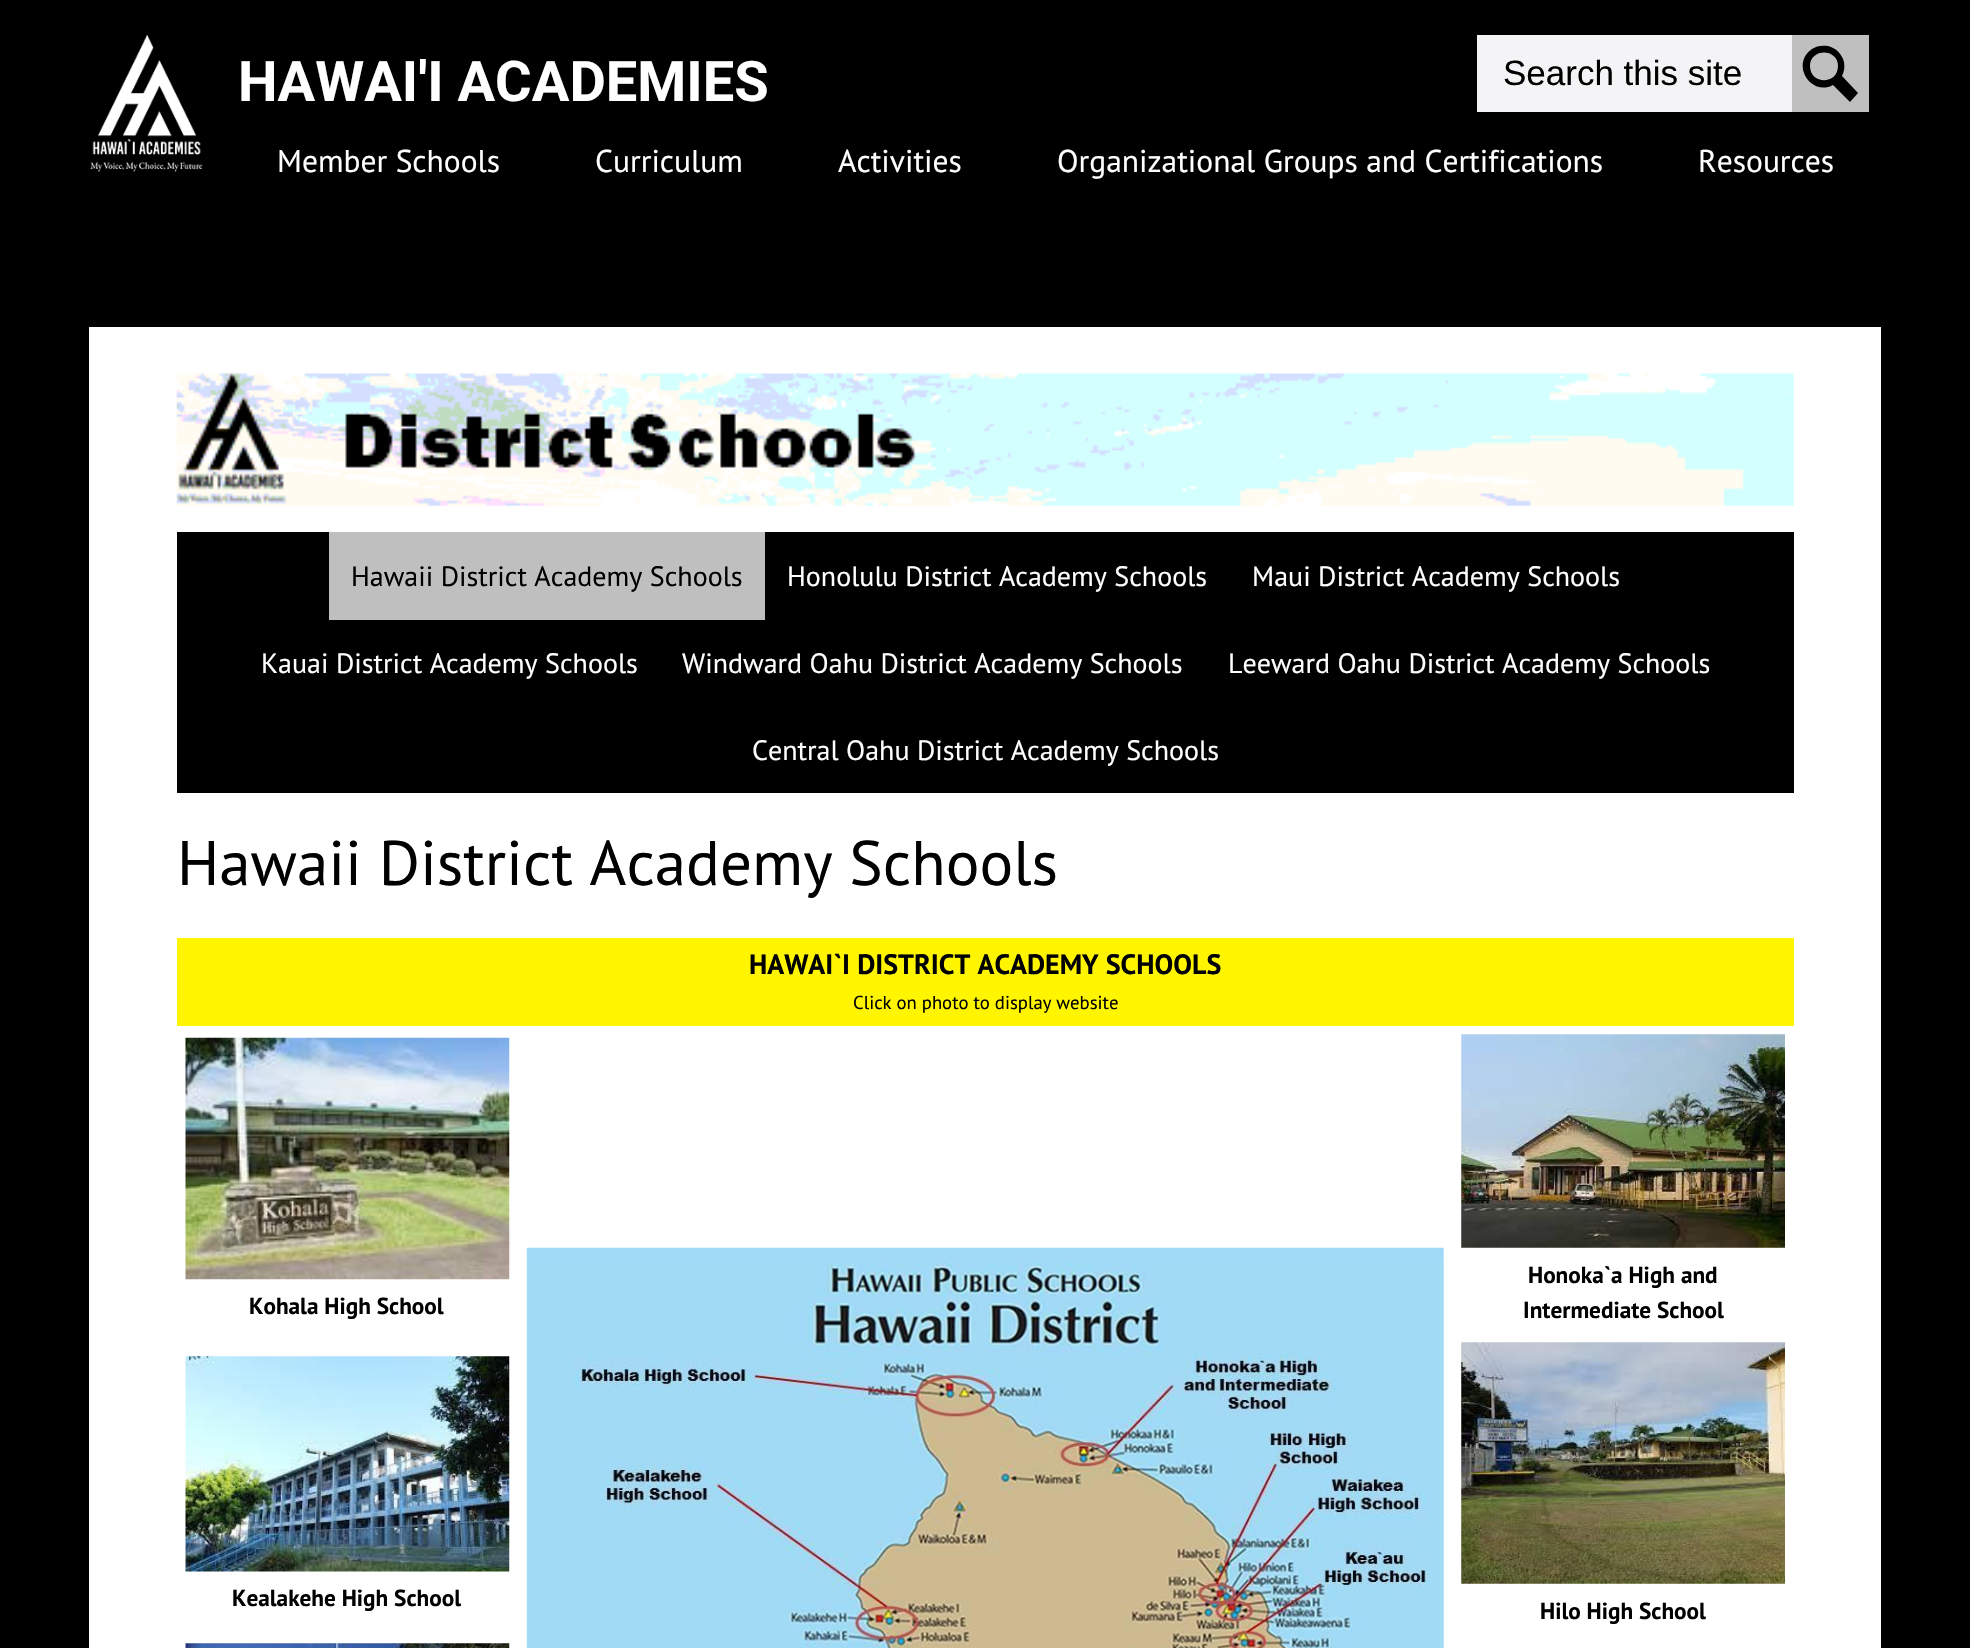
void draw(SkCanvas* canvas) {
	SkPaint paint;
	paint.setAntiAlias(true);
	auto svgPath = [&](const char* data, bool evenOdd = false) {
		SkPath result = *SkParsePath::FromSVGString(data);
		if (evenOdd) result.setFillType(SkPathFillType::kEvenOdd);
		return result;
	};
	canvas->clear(0xff000000);
	canvas->drawImageRect(SkImages::DeferredFromEncodedData(SkData::MakeFromFileName("img1.png")), SkRect::MakeXYWH(90, 35, 113, 137), SkSamplingOptions());
	SkFont f1(fontMgr->matchFamilyStyle("Roboto", SkFontStyle::Bold()), 56);
	f1.setSubpixel(true);
	paint.setColor(0xffffffff);
	canvas->drawString("HAWAI'I ACADEMIES", 238, 101, f1, paint);
	paint.setColor(0xfff4f4f6);
	canvas->drawRect(SkRect::MakeXYWH(1477, 35, 315, 77), paint);
	SkFont f2(fontMgr->matchFamilyStyle("Liberation Sans", SkFontStyle::Normal()), 35);
	f2.setSubpixel(true);
	paint.setColor(0xff000000);
	canvas->drawString("Search this site", 1503, 85, f2, paint);
	paint.setColor(0xffbfbfbf);
	canvas->drawRect(SkRect::MakeXYWH(1792, 35, 77, 77), paint);
	paint.setColor(0xff000000);
	canvas->drawPath(svgPath("M1858 93L1842 76C1844 72 1845 67 1844 62C1842 54 1836 48 1828 46C1822 45 1816 46 1812 49C1790 64 1811 97 1833 85L1850 102ZM1810 66C1810 48 1838 48 1838 66C1838 85 1810 85 1810 66Z"), paint);
	SkFont f3(fontMgr->matchFamilyStyle("PT Sans", SkFontStyle::Normal()), 31.5);
	f3.setSubpixel(true);
	paint.setColor(0xffffffff);
	canvas->drawString("Member Schools", 277, 172, f3, paint);
	canvas->drawString("Curriculum", 595, 172, f3, paint);
	canvas->drawString("Activities", 838, 172, f3, paint);
	canvas->drawString("Organizational Groups and Certifications", 1057, 172, f3, paint);
	canvas->drawString("Resources", 1698, 172, f3, paint);
	canvas->drawRect(SkRect::MakeXYWH(89, 327, 1792, 1321), paint);
	canvas->drawImageRect(SkImages::DeferredFromEncodedData(SkData::MakeFromFileName("img2.png")), SkRect::MakeXYWH(176, 372, 1618, 135), SkSamplingOptions());
	paint.setColor(0xff000000);
	canvas->drawRect(SkRect::MakeXYWH(177, 532, 1617, 261), paint);
	paint.setColor(0xffbfbfbf);
	canvas->drawRect(SkRect::MakeXYWH(329, 532, 436, 88), paint);
	SkFont f4(fontMgr->matchFamilyStyle("PT Sans", SkFontStyle::Normal()), 28);
	f4.setSubpixel(true);
	paint.setColor(0xff000000);
	canvas->drawString("Hawaii District Academy Schools", 351, 586, f4, paint);
	paint.setColor(0xffffffff);
	canvas->drawString("Honolulu District Academy Schools", 787, 586, f4, paint);
	canvas->drawString("Maui District Academy Schools", 1252, 586, f4, paint);
	canvas->drawString("Kauai District Academy Schools", 261, 673, f4, paint);
	canvas->drawString("Windward Oahu District Academy Schools", 682, 673, f4, paint);
	canvas->drawString("Leeward Oahu District Academy Schools", 1228, 673, f4, paint);
	canvas->drawString("Central Oahu District Academy Schools", 752, 760, f4, paint);
	SkFont f5(fontMgr->matchFamilyStyle("PT Sans", SkFontStyle::Normal()), 63);
	f5.setSubpixel(true);
	paint.setColor(0xff000000);
	canvas->drawString("Hawaii District Academy Schools", 177, 885, f5, paint);
	paint.setColor(0xfffff500);
	canvas->drawRect(SkRect::MakeXYWH(177, 938, 1617, 88), paint);
	SkFont f6(fontMgr->matchFamilyStyle("PT Sans", SkFontStyle::Bold()), 28);
	f6.setSubpixel(true);
	paint.setColor(0xff000000);
	canvas->drawString("HAWAI`I DISTRICT ACADEMY SCHOOLS", 749, 974, f6, paint);
	SkFont f7(fontMgr->matchFamilyStyle("PT Sans", SkFontStyle::Normal()), 18.7);
	f7.setSubpixel(true);
	canvas->drawString("Click on photo to display website", 853, 1009, f7, paint);
	canvas->drawImageRect(SkImages::DeferredFromEncodedData(SkData::MakeFromFileName("img3.png")), SkRect::MakeXYWH(185, 1037, 325, 243), SkSamplingOptions());
	SkFont f8(fontMgr->matchFamilyStyle("PT Sans", SkFontStyle::Bold()), 23.25);
	f8.setSubpixel(true);
	canvas->drawString("Kohala High School", 249, 1314, f8, paint);
	canvas->drawImageRect(SkImages::DeferredFromEncodedData(SkData::MakeFromFileName("img4.png")), SkRect::MakeXYWH(526, 1247, 918, 401), SkSamplingOptions());
	canvas->drawImageRect(SkImages::DeferredFromEncodedData(SkData::MakeFromFileName("img5.png")), SkRect::MakeXYWH(1461, 1034, 324, 214), SkSamplingOptions());
	canvas->drawString("Honoka`a High and", 1528, 1283, f8, paint);
	canvas->drawString("Intermediate School", 1523, 1318, f8, paint);
	canvas->drawImageRect(SkImages::DeferredFromEncodedData(SkData::MakeFromFileName("img6.png")), SkRect::MakeXYWH(185, 1356, 325, 216), SkSamplingOptions());
	canvas->drawString("Kealakehe High School", 232, 1606, f8, paint);
	canvas->drawImageRect(SkImages::DeferredFromEncodedData(SkData::MakeFromFileName("img7.png")), SkRect::MakeXYWH(1461, 1342, 324, 242), SkSamplingOptions());
	canvas->drawString("Hilo High School", 1540, 1619, f8, paint);
	canvas->drawImageRect(SkImages::DeferredFromEncodedData(SkData::MakeFromFileName("img8.png")), SkRect::MakeXYWH(185, 1643, 325, 5), SkSamplingOptions());
}
